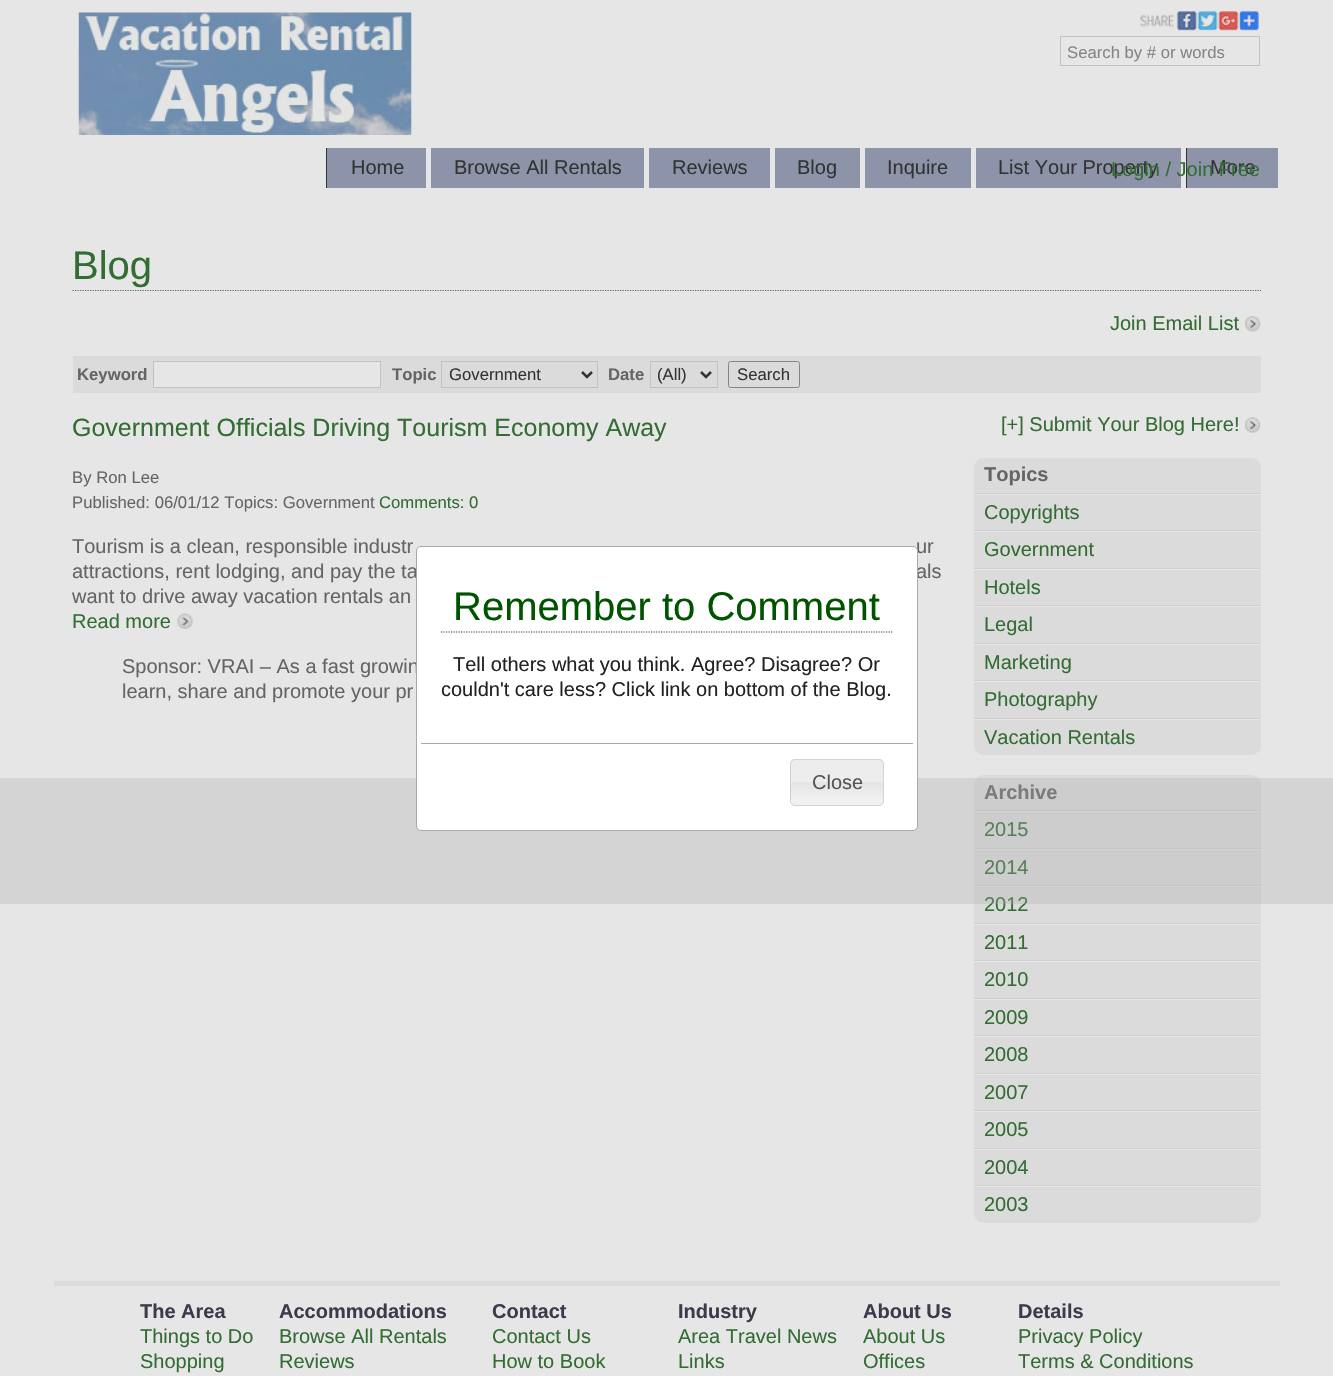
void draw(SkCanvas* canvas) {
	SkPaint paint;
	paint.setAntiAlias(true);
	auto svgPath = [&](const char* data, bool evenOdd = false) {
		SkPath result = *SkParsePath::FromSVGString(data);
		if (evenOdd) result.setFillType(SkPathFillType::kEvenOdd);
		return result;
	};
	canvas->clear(0xffe6e6e6);
	canvas->drawImageRect(SkImages::DeferredFromEncodedData(SkData::MakeFromFileName("img1.png")), SkRect::MakeXYWH(78, 12, 334, 123), SkSamplingOptions());
	canvas->drawImageRect(SkImages::DeferredFromEncodedData(SkData::MakeFromFileName("img2.png")), SkRect::MakeXYWH(1140, 11, 119, 20), SkSamplingOptions());
	paint.setStroke(true);
	paint.setStrokeWidth(1);
	paint.setColor(0xffc2c2c2);
	canvas->drawRect(SkRect::MakeXYWH(1060.5, 36.5, 199, 29), paint);
	SkFont f1(fontMgr->matchFamilyStyle("Liberation Sans", SkFontStyle::Normal()), 16.7);
	f1.setSubpixel(true);
	paint.setStroke(false);
	paint.setColor(0xff858585);
	canvas->drawString("Search by # or words", 1067, 58, f1, paint);
	paint.setColor(0xff8d94a9);
	canvas->drawRect(SkRect::MakeXYWH(976, 148, 205, 40), paint);
	SkFont f2(fontMgr->matchFamilyStyle("Liberation Sans", SkFontStyle::Normal()), 20);
	f2.setSubpixel(true);
	paint.setColor(0xff333333);
	canvas->drawString("List Your Property", 998, 174, f2, paint);
	paint.setColor(0xff8d94a9);
	canvas->drawRect(SkRect::MakeXYWH(1187, 148, 91, 40), paint);
	paint.setColor(0xff333333);
	canvas->drawRect(SkRect::MakeXYWH(1186, 148, 1, 40), paint);
	canvas->drawString("More", 1210, 174, f2, paint);
	paint.setColor(0xff336d33);
	canvas->drawString("Login / Join Free", 1111, 176, f2, paint);
	paint.setColor(0xff8d94a9);
	canvas->drawRect(SkRect::MakeXYWH(327, 148, 99, 40), paint);
	paint.setColor(0xff333333);
	canvas->drawRect(SkRect::MakeXYWH(326, 148, 1, 40), paint);
	canvas->drawString("Home", 351, 174, f2, paint);
	paint.setColor(0xff8d94a9);
	canvas->drawRect(SkRect::MakeXYWH(431, 148, 213, 40), paint);
	paint.setColor(0xff333333);
	canvas->drawString("Browse All Rentals", 454, 174, f2, paint);
	paint.setColor(0xff8d94a9);
	canvas->drawRect(SkRect::MakeXYWH(649, 148, 121, 40), paint);
	paint.setColor(0xff333333);
	canvas->drawString("Reviews", 672, 174, f2, paint);
	paint.setColor(0xff8d94a9);
	canvas->drawRect(SkRect::MakeXYWH(775, 148, 85, 40), paint);
	paint.setColor(0xff333333);
	canvas->drawString("Blog", 797, 174, f2, paint);
	paint.setColor(0xff8d94a9);
	canvas->drawRect(SkRect::MakeXYWH(865, 148, 106, 40), paint);
	paint.setColor(0xff333333);
	canvas->drawString("Inquire", 887, 174, f2, paint);
	paint.setStroke(true);
	paint.setStrokeWidth(1.2);
	paint.setColor(0xff606060);
	paint.setPathEffect(SkDashPathEffect::Make({{1.25f, 1.25f}}, 0));
	canvas->drawPath(svgPath("M72.5 290.5H1261"), paint);
	paint.setPathEffect(nullptr);
	SkFont f3(fontMgr->matchFamilyStyle("Liberation Sans", SkFontStyle::Normal()), 40);
	f3.setSubpixel(true);
	paint.setStroke(false);
	paint.setColor(0xff336d33);
	canvas->drawString("Blog", 72, 279, f3, paint);
	canvas->drawString("Join Email List", 1110, 330, f2, paint);
	canvas->drawImageRect(SkImages::DeferredFromEncodedData(SkData::MakeFromFileName("img3.png")), SkRect::MakeXYWH(1245, 316, 16, 16), SkSamplingOptions());
	paint.setColor(0xffdbdbdb);
	canvas->drawRect(SkRect::MakeXYWH(73, 356, 1188, 37), paint);
	SkFont f4(fontMgr->matchFamilyStyle("Liberation Sans", SkFontStyle::Bold()), 16.7);
	f4.setSubpixel(true);
	paint.setColor(0xff656565);
	canvas->drawString("Keyword", 77, 380, f4, paint);
	paint.setColor(0xffe6e6e6);
	canvas->drawRect(SkRect::MakeXYWH(153.5, 361.5, 227, 26), paint);
	paint.setStroke(true);
	paint.setStrokeWidth(1);
	paint.setColor(0xffc2c2c2);
	canvas->drawRect(SkRect::MakeXYWH(153.5, 361.5, 227, 26), paint);
	paint.setStroke(false);
	paint.setColor(0xff656565);
	canvas->drawString("Topic", 392, 380, f4, paint);
	paint.setStroke(true);
	paint.setColor(0xffc2c2c2);
	canvas->drawRect(SkRect::MakeXYWH(441.5, 361.5, 156, 26), paint);
	paint.setStrokeWidth(2.5);
	paint.setColor(0xff333333);
	canvas->drawPath(svgPath("M582 372L587 377L592 372"), paint);
	paint.setStroke(false);
	canvas->drawString("Government", 449, 380, f1, paint);
	paint.setColor(0xff656565);
	canvas->drawString("Date", 608, 380, f4, paint);
	paint.setStroke(true);
	paint.setStrokeWidth(1);
	paint.setColor(0xffc2c2c2);
	canvas->drawRect(SkRect::MakeXYWH(650.5, 361.5, 67, 26), paint);
	paint.setStrokeWidth(2.5);
	paint.setColor(0xff333333);
	canvas->drawPath(svgPath("M701 372L706 377L711 372"), paint);
	paint.setStroke(false);
	canvas->drawString("(All)", 657, 380, f1, paint);
	paint.setStroke(true);
	paint.setStrokeWidth(1);
	paint.setColor(0xff868686);
	canvas->drawRoundRect(SkRect::MakeXYWH(728.5, 361.5, 71, 26), 2, 2, paint);
	paint.setStroke(false);
	paint.setColor(0xff333333);
	canvas->drawString("Search", 737, 380, f1, paint);
	SkFont f5(fontMgr->matchFamilyStyle("Liberation Sans", SkFontStyle::Normal()), 25);
	f5.setSubpixel(true);
	paint.setColor(0xff336d33);
	canvas->drawString("Government Officials Driving Tourism Economy Away", 72, 436, f5, paint);
	paint.setColor(0xff656565);
	canvas->drawString("By Ron Lee", 72, 483, f1, paint);
	canvas->drawString("Published: 06/01/12 Topics: Government", 72, 508, f1, paint);
	paint.setColor(0xff336d33);
	canvas->drawString("Comments: 0", 379, 508, f1, paint);
	paint.setColor(0xff656565);
	canvas->drawString("Tourism is a clean, responsible industr", 72, 553, f2, paint);
	canvas->drawString("ur", 916, 553, f2, paint);
	canvas->drawString("attractions, rent lodging, and pay the ta", 72, 578, f2, paint);
	canvas->drawString("als", 916, 578, f2, paint);
	canvas->drawString("want to drive away vacation rentals an", 72, 603, f2, paint);
	paint.setColor(0xff336d33);
	canvas->drawString("Read more", 72, 628, f2, paint);
	canvas->drawImageRect(SkImages::DeferredFromEncodedData(SkData::MakeFromFileName("img4.png")), SkRect::MakeXYWH(177, 613, 16, 16), SkSamplingOptions());
	paint.setColor(0xff656565);
	canvas->drawString("Sponsor: VRAI – As a fast growin", 122, 673, f2, paint);
	canvas->drawString("learn, share and promote your pr", 122, 698, f2, paint);
	paint.setColor(0xff336d33);
	canvas->drawString("[+] Submit Your Blog Here!", 1001, 431, f2, paint);
	canvas->drawImageRect(SkImages::DeferredFromEncodedData(SkData::MakeFromFileName("img5.png")), SkRect::MakeXYWH(1245, 417, 16, 16), SkSamplingOptions());
	paint.setColor(0xffdbdbdb);
	canvas->drawPath(svgPath("M984 458H1251C1256.5 458 1261 462.5 1261 468V494H974V468C974 462.5 978.5 458 984 458Z"), paint);
	paint.setColor(0xffd0d0d0);
	canvas->drawRect(SkRect::MakeXYWH(974, 493, 287, 1), paint);
	SkFont f6(fontMgr->matchFamilyStyle("Liberation Sans", SkFontStyle::Bold()), 20);
	f6.setSubpixel(true);
	paint.setColor(0xff656565);
	canvas->drawString("Topics", 984, 481, f6, paint);
	paint.setColor(0xffdbdbdb);
	canvas->drawRect(SkRect::MakeXYWH(974, 495, 287, 35), paint);
	paint.setColor(0xffd0d0d0);
	canvas->drawRect(SkRect::MakeXYWH(974, 530, 287, 1), paint);
	paint.setColor(0xff336d33);
	canvas->drawString("Copyrights", 984, 519, f2, paint);
	paint.setColor(0xffdbdbdb);
	canvas->drawRect(SkRect::MakeXYWH(974, 532, 287, 36), paint);
	paint.setColor(0xffd0d0d0);
	canvas->drawRect(SkRect::MakeXYWH(974, 568, 287, 1), paint);
	paint.setColor(0xff336d33);
	canvas->drawString("Government", 984, 556, f2, paint);
	paint.setColor(0xffdbdbdb);
	canvas->drawRect(SkRect::MakeXYWH(974, 570, 287, 35), paint);
	paint.setColor(0xffd0d0d0);
	canvas->drawRect(SkRect::MakeXYWH(974, 605, 287, 1), paint);
	paint.setColor(0xff336d33);
	canvas->drawString("Hotels", 984, 594, f2, paint);
	paint.setColor(0xffdbdbdb);
	canvas->drawRect(SkRect::MakeXYWH(974, 607, 287, 36), paint);
	paint.setColor(0xffd0d0d0);
	canvas->drawRect(SkRect::MakeXYWH(974, 643, 287, 1), paint);
	paint.setColor(0xff336d33);
	canvas->drawString("Legal", 984, 631, f2, paint);
	paint.setColor(0xffdbdbdb);
	canvas->drawRect(SkRect::MakeXYWH(974, 645, 287, 35), paint);
	paint.setColor(0xffd0d0d0);
	canvas->drawRect(SkRect::MakeXYWH(974, 680, 287, 1), paint);
	paint.setColor(0xff336d33);
	canvas->drawString("Marketing", 984, 669, f2, paint);
	paint.setColor(0xffdbdbdb);
	canvas->drawRect(SkRect::MakeXYWH(974, 682, 287, 36), paint);
	paint.setColor(0xffd0d0d0);
	canvas->drawRect(SkRect::MakeXYWH(974, 718, 287, 1), paint);
	paint.setColor(0xff336d33);
	canvas->drawString("Photography", 984, 706, f2, paint);
	paint.setColor(0xffdbdbdb);
	canvas->drawPath(svgPath("M974 719H1261V745C1261 750.5 1256.5 755 1251 755H984C978.5 755 974 750.5 974 745Z"), paint);
	paint.setColor(0xffe6e6e6);
	canvas->drawRect(SkRect::MakeXYWH(974, 719, 287, 1), paint);
	paint.setColor(0xff336d33);
	canvas->drawString("Vacation Rentals", 984, 744, f2, paint);
	paint.setColor(0xffdbdbdb);
	canvas->drawPath(svgPath("M984 775H1251C1256.5 775 1261 779.5 1261 785V811H974V785C974 779.5 978.5 775 984 775Z"), paint);
	paint.setColor(0xffd0d0d0);
	canvas->drawRect(SkRect::MakeXYWH(974, 810, 287, 1), paint);
	paint.setColor(0xff656565);
	canvas->drawString("Archive", 984, 799, f6, paint);
	paint.setColor(0xffdbdbdb);
	canvas->drawRect(SkRect::MakeXYWH(974, 812, 287, 36), paint);
	paint.setColor(0xffd0d0d0);
	canvas->drawRect(SkRect::MakeXYWH(974, 848, 287, 1), paint);
	paint.setColor(0xff336d33);
	canvas->drawString("2015", 984, 836, f2, paint);
	paint.setColor(0xffdbdbdb);
	canvas->drawRect(SkRect::MakeXYWH(974, 850, 287, 35), paint);
	paint.setColor(0xffd0d0d0);
	canvas->drawRect(SkRect::MakeXYWH(974, 885, 287, 1), paint);
	paint.setColor(0xff336d33);
	canvas->drawString("2014", 984, 874, f2, paint);
	paint.setColor(0xffdbdbdb);
	canvas->drawRect(SkRect::MakeXYWH(974, 887, 287, 36), paint);
	paint.setColor(0xffd0d0d0);
	canvas->drawRect(SkRect::MakeXYWH(974, 923, 287, 1), paint);
	paint.setColor(0xff336d33);
	canvas->drawString("2012", 984, 911, f2, paint);
	paint.setColor(0xffdbdbdb);
	canvas->drawRect(SkRect::MakeXYWH(974, 925, 287, 35), paint);
	paint.setColor(0xffd0d0d0);
	canvas->drawRect(SkRect::MakeXYWH(974, 960, 287, 1), paint);
	paint.setColor(0xff336d33);
	canvas->drawString("2011", 984, 949, f2, paint);
	paint.setColor(0xffdbdbdb);
	canvas->drawRect(SkRect::MakeXYWH(974, 962, 287, 36), paint);
	paint.setColor(0xffd0d0d0);
	canvas->drawRect(SkRect::MakeXYWH(974, 998, 287, 1), paint);
	paint.setColor(0xff336d33);
	canvas->drawString("2010", 984, 986, f2, paint);
	paint.setColor(0xffdbdbdb);
	canvas->drawRect(SkRect::MakeXYWH(974, 1000, 287, 35), paint);
	paint.setColor(0xffd0d0d0);
	canvas->drawRect(SkRect::MakeXYWH(974, 1035, 287, 1), paint);
	paint.setColor(0xff336d33);
	canvas->drawString("2009", 984, 1024, f2, paint);
	paint.setColor(0xffdbdbdb);
	canvas->drawRect(SkRect::MakeXYWH(974, 1037, 287, 36), paint);
	paint.setColor(0xffd0d0d0);
	canvas->drawRect(SkRect::MakeXYWH(974, 1073, 287, 1), paint);
	paint.setColor(0xff336d33);
	canvas->drawString("2008", 984, 1061, f2, paint);
	paint.setColor(0xffdbdbdb);
	canvas->drawRect(SkRect::MakeXYWH(974, 1075, 287, 35), paint);
	paint.setColor(0xffd0d0d0);
	canvas->drawRect(SkRect::MakeXYWH(974, 1110, 287, 1), paint);
	paint.setColor(0xff336d33);
	canvas->drawString("2007", 984, 1099, f2, paint);
	paint.setColor(0xffdbdbdb);
	canvas->drawRect(SkRect::MakeXYWH(974, 1112, 287, 36), paint);
	paint.setColor(0xffd0d0d0);
	canvas->drawRect(SkRect::MakeXYWH(974, 1148, 287, 1), paint);
	paint.setColor(0xff336d33);
	canvas->drawString("2005", 984, 1136, f2, paint);
	paint.setColor(0xffdbdbdb);
	canvas->drawRect(SkRect::MakeXYWH(974, 1150, 287, 35), paint);
	paint.setColor(0xffd0d0d0);
	canvas->drawRect(SkRect::MakeXYWH(974, 1185, 287, 1), paint);
	paint.setColor(0xff336d33);
	canvas->drawString("2004", 984, 1174, f2, paint);
	paint.setColor(0xffdbdbdb);
	canvas->drawPath(svgPath("M974 1186H1261V1213C1261 1218.5 1256.5 1223 1251 1223H984C978.5 1223 974 1218.5 974 1213Z"), paint);
	paint.setColor(0xffe6e6e6);
	canvas->drawRect(SkRect::MakeXYWH(974, 1186, 287, 1), paint);
	paint.setColor(0xff336d33);
	canvas->drawString("2003", 984, 1211, f2, paint);
	paint.setColor(0xffdcdcdc);
	canvas->drawRect(SkRect::MakeXYWH(54, 1281, 1226, 5), paint);
	paint.setColor(0xff3a3b4c);
	canvas->drawString("The Area", 140, 1318, f6, paint);
	paint.setColor(0xff336d33);
	canvas->drawString("Things to Do", 140, 1343, f2, paint);
	canvas->drawString("Shopping", 140, 1368, f2, paint);
	paint.setColor(0xff3a3b4c);
	canvas->drawString("Accommodations", 279, 1318, f6, paint);
	paint.setColor(0xff336d33);
	canvas->drawString("Browse All Rentals", 279, 1343, f2, paint);
	canvas->drawString("Reviews", 279, 1368, f2, paint);
	paint.setColor(0xff3a3b4c);
	canvas->drawString("Contact", 492, 1318, f6, paint);
	paint.setColor(0xff336d33);
	canvas->drawString("Contact Us", 492, 1343, f2, paint);
	canvas->drawString("How to Book", 492, 1368, f2, paint);
	paint.setColor(0xff3a3b4c);
	canvas->drawString("Industry", 678, 1318, f6, paint);
	paint.setColor(0xff336d33);
	canvas->drawString("Area Travel News", 678, 1343, f2, paint);
	canvas->drawString("Links", 678, 1368, f2, paint);
	paint.setColor(0xff3a3b4c);
	canvas->drawString("About Us", 863, 1318, f6, paint);
	paint.setColor(0xff336d33);
	canvas->drawString("About Us", 863, 1343, f2, paint);
	canvas->drawString("Offices", 863, 1368, f2, paint);
	paint.setColor(0xff3a3b4c);
	canvas->drawString("Details", 1018, 1318, f6, paint);
	paint.setColor(0xff336d33);
	canvas->drawString("Privacy Policy", 1018, 1343, f2, paint);
	canvas->drawString("Terms & Conditions", 1018, 1368, f2, paint);
	paint.setColor(0x4dababab);
	canvas->drawRect(SkRect::MakeXYWH(0, 778, 1333, 126), paint);
	paint.setColor(0xffffffff);
	canvas->drawRoundRect(SkRect::MakeXYWH(416.5, 546.5, 501, 284), 4.5, 4.5, paint);
	paint.setStroke(true);
	paint.setColor(0xffaaaaaa);
	canvas->drawRoundRect(SkRect::MakeXYWH(416.5, 546.5, 501, 284), 4.5, 4.5, paint);
	paint.setStrokeWidth(1.2);
	paint.setColor(0xff404040);
	paint.setPathEffect(SkDashPathEffect::Make({{1.25f, 1.25f}}, 0));
	canvas->drawPath(svgPath("M441 632H892.5"), paint);
	paint.setPathEffect(nullptr);
	paint.setStroke(false);
	paint.setColor(0xff005300);
	canvas->drawString("Remember to Comment", 453, 620, f3, paint);
	paint.setColor(0xff222222);
	canvas->drawString("Tell others what you think. Agree? Disagree? Or", 453, 671, f2, paint);
	canvas->drawString("couldn't care less? Click link on bottom of the Blog.", 441, 696, f2, paint);
	paint.setColor(0xffaaaaaa);
	canvas->drawRect(SkRect::MakeXYWH(421, 743, 492, 1), paint);
	canvas->drawImageRect(SkImages::DeferredFromEncodedData(SkData::MakeFromFileName("img6.png")), SkRect::MakeXYWH(790, 759, 94, 47), SkSamplingOptions());
	paint.setStroke(true);
	paint.setStrokeWidth(1);
	paint.setColor(0xffd3d3d3);
	canvas->drawRoundRect(SkRect::MakeXYWH(790.5, 759.5, 93, 46), 4.5, 4.5, paint);
	paint.setStroke(false);
	paint.setColor(0xff555555);
	canvas->drawString("Close", 812, 789, f2, paint);
}
